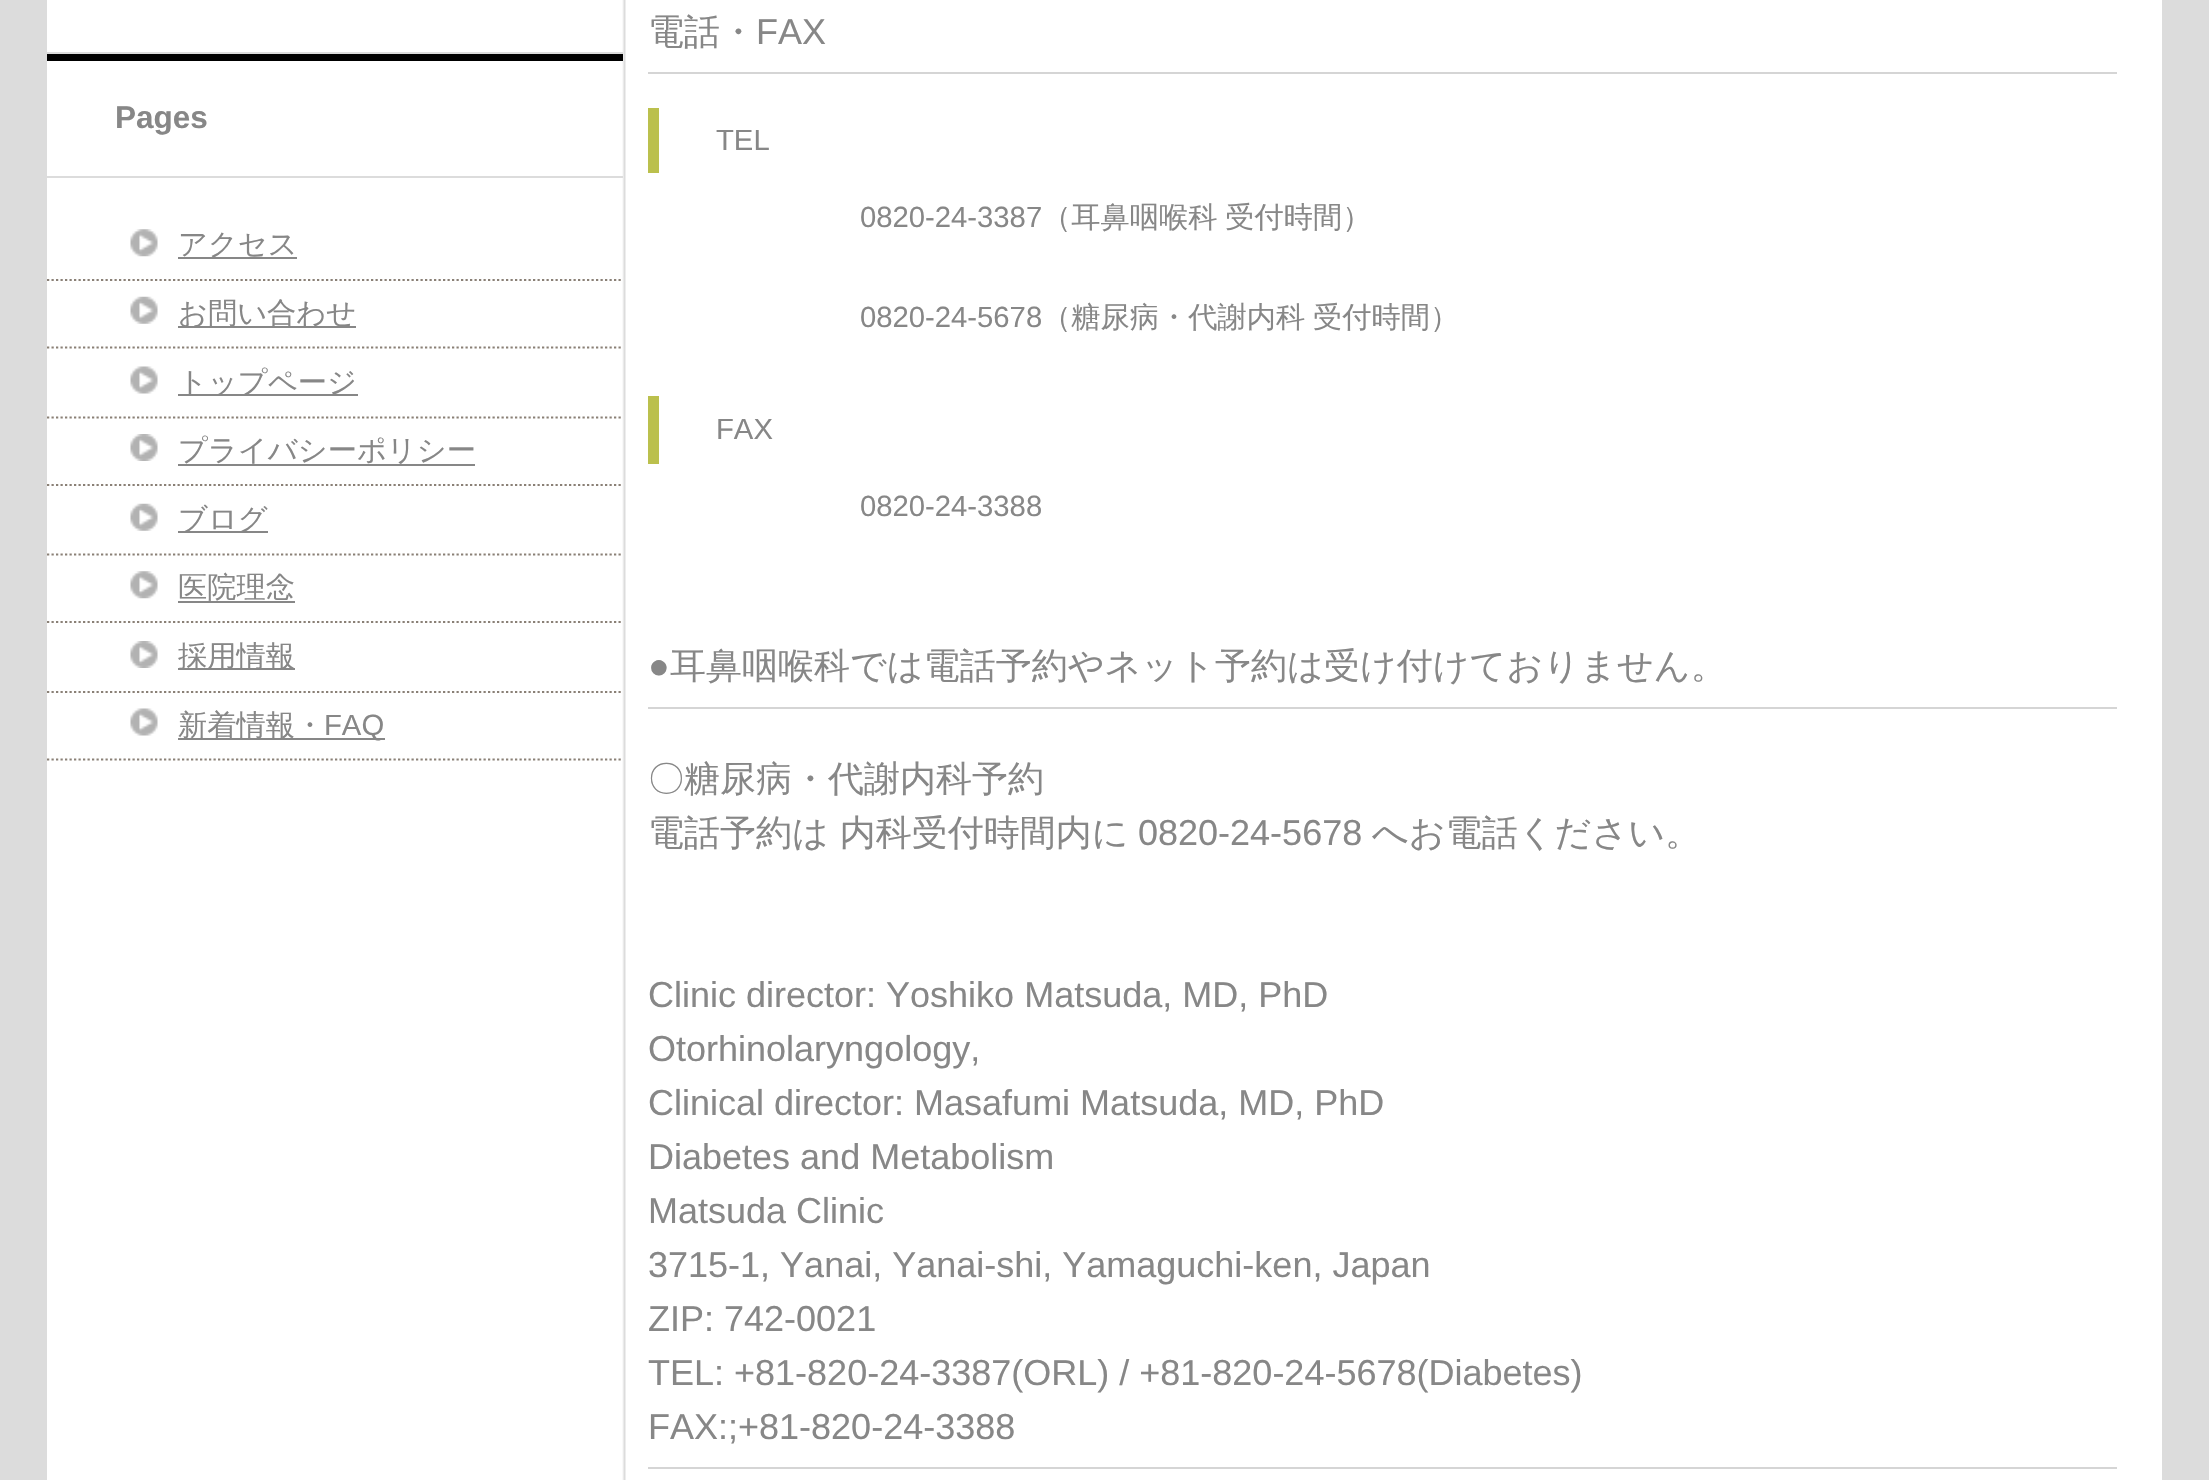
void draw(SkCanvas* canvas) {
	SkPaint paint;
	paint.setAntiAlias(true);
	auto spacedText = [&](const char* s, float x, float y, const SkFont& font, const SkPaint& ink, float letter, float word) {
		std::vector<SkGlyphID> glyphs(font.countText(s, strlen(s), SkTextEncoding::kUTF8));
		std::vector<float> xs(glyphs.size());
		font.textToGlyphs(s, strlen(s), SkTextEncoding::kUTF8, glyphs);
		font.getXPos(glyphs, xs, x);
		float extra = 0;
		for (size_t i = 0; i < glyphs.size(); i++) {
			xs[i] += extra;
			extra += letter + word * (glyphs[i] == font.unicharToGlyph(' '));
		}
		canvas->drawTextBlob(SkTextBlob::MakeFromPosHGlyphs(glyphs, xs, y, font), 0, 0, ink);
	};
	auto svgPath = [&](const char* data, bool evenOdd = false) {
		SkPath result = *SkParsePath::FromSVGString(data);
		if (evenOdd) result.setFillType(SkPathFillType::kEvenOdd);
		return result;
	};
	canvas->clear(0xffdcdcdc);
	paint.setColor(0xffffffff);
	canvas->drawRect(SkRect::MakeXYWH(47, 0, 2115, 1480), paint);
	canvas->drawImageRect(SkImages::DeferredFromEncodedData(SkData::MakeFromFileName("img1.png")), SkRect::MakeXYWH(622, 0, 4, 1480), SkSamplingOptions());
	paint.setColor(0xffdcdcdc);
	canvas->drawRect(SkRect::MakeXYWH(47, 52, 576, 2), paint);
	paint.setColor(0xff000000);
	canvas->drawRect(SkRect::MakeXYWH(47, 54, 576, 7), paint);
	paint.setColor(0xffdcdcdc);
	canvas->drawRect(SkRect::MakeXYWH(47, 176, 576, 2), paint);
	SkFont f1(fontMgr->matchFamilyStyle("Liberation Sans", SkFontStyle::Bold()), 31.5);
	f1.setSubpixel(true);
	paint.setColor(0xff878787);
	canvas->drawString("Pages", 115, 128, f1, paint);
	canvas->drawImageRect(SkImages::DeferredFromEncodedData(SkData::MakeFromFileName("img2.png")), SkRect::MakeXYWH(130, 229, 28, 28), SkSamplingOptions());
	canvas->drawRect(SkRect::MakeXYWH(178, 257, 119, 2), paint);
	SkFont f2(fontMgr->matchFamilyStyle("WenQuanYi Zen Hei", SkFontStyle(500, SkFontStyle::kNormal_Width, SkFontStyle::kUpright_Slant)), 29.25);
	f2.setSubpixel(true);
	canvas->drawString("アクセス", 178, 254, f2, paint);
	paint.setStroke(true);
	paint.setStrokeWidth(2.2);
	paint.setColor(0xff8a8076);
	paint.setPathEffect(SkDashPathEffect::Make({{2.25f, 2.25f}}, 0));
	canvas->drawPath(svgPath("M47 280H623"), paint);
	paint.setPathEffect(nullptr);
	canvas->drawImageRect(SkImages::DeferredFromEncodedData(SkData::MakeFromFileName("img3.png")), SkRect::MakeXYWH(130, 296, 28, 28), SkSamplingOptions());
	paint.setStroke(false);
	paint.setColor(0xff878787);
	canvas->drawRect(SkRect::MakeXYWH(178, 326, 178, 2), paint);
	canvas->drawString("お問い合わせ", 178, 323, f2, paint);
	paint.setStroke(true);
	paint.setColor(0xff8a8076);
	paint.setPathEffect(SkDashPathEffect::Make({{2.25f, 2.25f}}, 0));
	canvas->drawPath(svgPath("M47 347.5H623"), paint);
	paint.setPathEffect(nullptr);
	canvas->drawImageRect(SkImages::DeferredFromEncodedData(SkData::MakeFromFileName("img4.png")), SkRect::MakeXYWH(130, 366, 28, 28), SkSamplingOptions());
	paint.setStroke(false);
	paint.setColor(0xff878787);
	canvas->drawRect(SkRect::MakeXYWH(178, 394, 180, 2), paint);
	canvas->drawString("トップページ", 178, 392, f2, paint);
	paint.setStroke(true);
	paint.setColor(0xff8a8076);
	paint.setPathEffect(SkDashPathEffect::Make({{2.25f, 2.25f}}, 0));
	canvas->drawPath(svgPath("M47 417.5H623"), paint);
	paint.setPathEffect(nullptr);
	canvas->drawImageRect(SkImages::DeferredFromEncodedData(SkData::MakeFromFileName("img5.png")), SkRect::MakeXYWH(130, 434, 28, 27), SkSamplingOptions());
	paint.setStroke(false);
	paint.setColor(0xff878787);
	canvas->drawRect(SkRect::MakeXYWH(178, 464, 297, 2), paint);
	canvas->drawString("プライバシーポリシー", 178, 460, f2, paint);
	paint.setStroke(true);
	paint.setColor(0xff8a8076);
	paint.setPathEffect(SkDashPathEffect::Make({{2.25f, 2.25f}}, 0));
	canvas->drawPath(svgPath("M47 485H623"), paint);
	paint.setPathEffect(nullptr);
	canvas->drawImageRect(SkImages::DeferredFromEncodedData(SkData::MakeFromFileName("img3.png")), SkRect::MakeXYWH(130, 503, 28, 28), SkSamplingOptions());
	paint.setStroke(false);
	paint.setColor(0xff878787);
	canvas->drawRect(SkRect::MakeXYWH(178, 531, 90, 2), paint);
	canvas->drawString("ブログ", 178, 529, f2, paint);
	paint.setStroke(true);
	paint.setColor(0xff8a8076);
	paint.setPathEffect(SkDashPathEffect::Make({{2.25f, 2.25f}}, 0));
	canvas->drawPath(svgPath("M47 554.5H623"), paint);
	paint.setPathEffect(nullptr);
	canvas->drawImageRect(SkImages::DeferredFromEncodedData(SkData::MakeFromFileName("img2.png")), SkRect::MakeXYWH(130, 571, 28, 28), SkSamplingOptions());
	paint.setStroke(false);
	paint.setColor(0xff878787);
	canvas->drawString("医院理念", 178, 597, f2, paint);
	canvas->drawRect(SkRect::MakeXYWH(178, 601, 117, 2), paint);
	paint.setStroke(true);
	paint.setColor(0xff8a8076);
	paint.setPathEffect(SkDashPathEffect::Make({{2.25f, 2.25f}}, 0));
	canvas->drawPath(svgPath("M47 622H623"), paint);
	paint.setPathEffect(nullptr);
	canvas->drawImageRect(SkImages::DeferredFromEncodedData(SkData::MakeFromFileName("img5.png")), SkRect::MakeXYWH(130, 641, 28, 27), SkSamplingOptions());
	paint.setStroke(false);
	paint.setColor(0xff878787);
	canvas->drawRect(SkRect::MakeXYWH(178, 668, 117, 2), paint);
	canvas->drawString("採用情報", 178, 666, f2, paint);
	paint.setStroke(true);
	paint.setColor(0xff8a8076);
	paint.setPathEffect(SkDashPathEffect::Make({{2.25f, 2.25f}}, 0));
	canvas->drawPath(svgPath("M47 692H623"), paint);
	paint.setPathEffect(nullptr);
	paint.setPathEffect(SkDashPathEffect::Make({{2.25f, 2.25f}}, 0));
	canvas->drawPath(svgPath("M47 759.5H623"), paint);
	paint.setPathEffect(nullptr);
	canvas->drawImageRect(SkImages::DeferredFromEncodedData(SkData::MakeFromFileName("img4.png")), SkRect::MakeXYWH(130, 708, 28, 28), SkSamplingOptions());
	paint.setStroke(false);
	paint.setColor(0xff878787);
	canvas->drawRect(SkRect::MakeXYWH(178, 738, 207, 2), paint);
	canvas->drawString("新着情報・", 178, 735, f2, paint);
	SkFont f3(fontMgr->matchFamilyStyle("Liberation Sans", SkFontStyle::Normal()), 29.25);
	f3.setSubpixel(true);
	canvas->drawString("FAQ", 324, 735, f3, paint);
	paint.setColor(0xffd5d5d5);
	canvas->drawRect(SkRect::MakeXYWH(648, 72, 1469, 2), paint);
	SkFont f4(fontMgr->matchFamilyStyle("WenQuanYi Zen Hei", SkFontStyle(500, SkFontStyle::kNormal_Width, SkFontStyle::kUpright_Slant)), 36);
	f4.setSubpixel(true);
	paint.setColor(0xff878787);
	canvas->drawString("電話・", 648, 44, f4, paint);
	SkFont f5(fontMgr->matchFamilyStyle("Liberation Sans", SkFontStyle::Normal()), 36);
	f5.setSubpixel(true);
	canvas->drawString("FAX", 756, 44, f5, paint);
	paint.setColor(0xffbbc04d);
	canvas->drawRect(SkRect::MakeXYWH(648, 108, 11, 65), paint);
	paint.setColor(0xff878787);
	canvas->drawString("TEL", 716, 150, f3, paint);
	canvas->drawString("0820-24-3387", 860, 227, f3, paint);
	spacedText("（耳鼻咽喉科 受付時間）", 1042, 227, f2, paint, 0, -1);
	canvas->drawString("0820-24-5678", 860, 327, f3, paint);
	spacedText("（糖尿病・代謝内科 受付時間）", 1042, 327, f2, paint, 0, -1);
	paint.setColor(0xffbbc04d);
	canvas->drawRect(SkRect::MakeXYWH(648, 396, 11, 68), paint);
	paint.setColor(0xff878787);
	canvas->drawString("FAX", 716, 439, f3, paint);
	canvas->drawString("0820-24-3388", 860, 516, f3, paint);
	paint.setColor(0xffd5d5d5);
	canvas->drawRect(SkRect::MakeXYWH(648, 707, 1469, 2), paint);
	paint.setColor(0xff878787);
	canvas->drawString("●", 648, 678, f5, paint);
	canvas->drawString("耳鼻咽喉科では電話予約やネット予約は受け付けておりません。", 670, 678, f4, paint);
	paint.setColor(0xffd5d5d5);
	canvas->drawRect(SkRect::MakeXYWH(648, 1467, 1469, 2), paint);
	paint.setColor(0xff878787);
	canvas->drawString("〇糖尿病・代謝内科予約", 648, 791, f4, paint);
	canvas->drawString("電話予約は 内科受付時間内に", 648, 845, f4, paint);
	canvas->drawString("0820-24-5678", 1138, 845, f5, paint);
	canvas->drawString("へお電話ください。", 1372, 845, f4, paint);
	canvas->drawString("Clinic director: Yoshiko Matsuda, MD, PhD", 648, 1007, f5, paint);
	canvas->drawString("Otorhinolaryngology,", 648, 1061, f5, paint);
	canvas->drawString("Clinical director: Masafumi Matsuda, MD, PhD", 648, 1115, f5, paint);
	canvas->drawString("Diabetes and Metabolism", 648, 1169, f5, paint);
	canvas->drawString("Matsuda Clinic", 648, 1223, f5, paint);
	canvas->drawString("3715-1, Yanai, Yanai-shi, Yamaguchi-ken, Japan", 648, 1277, f5, paint);
	canvas->drawString("ZIP: 742-0021", 648, 1331, f5, paint);
	canvas->drawString("TEL: +81-820-24-3387(ORL) / +81-820-24-5678(Diabetes)", 648, 1385, f5, paint);
	canvas->drawString("FAX:;+81-820-24-3388", 648, 1439, f5, paint);
}
